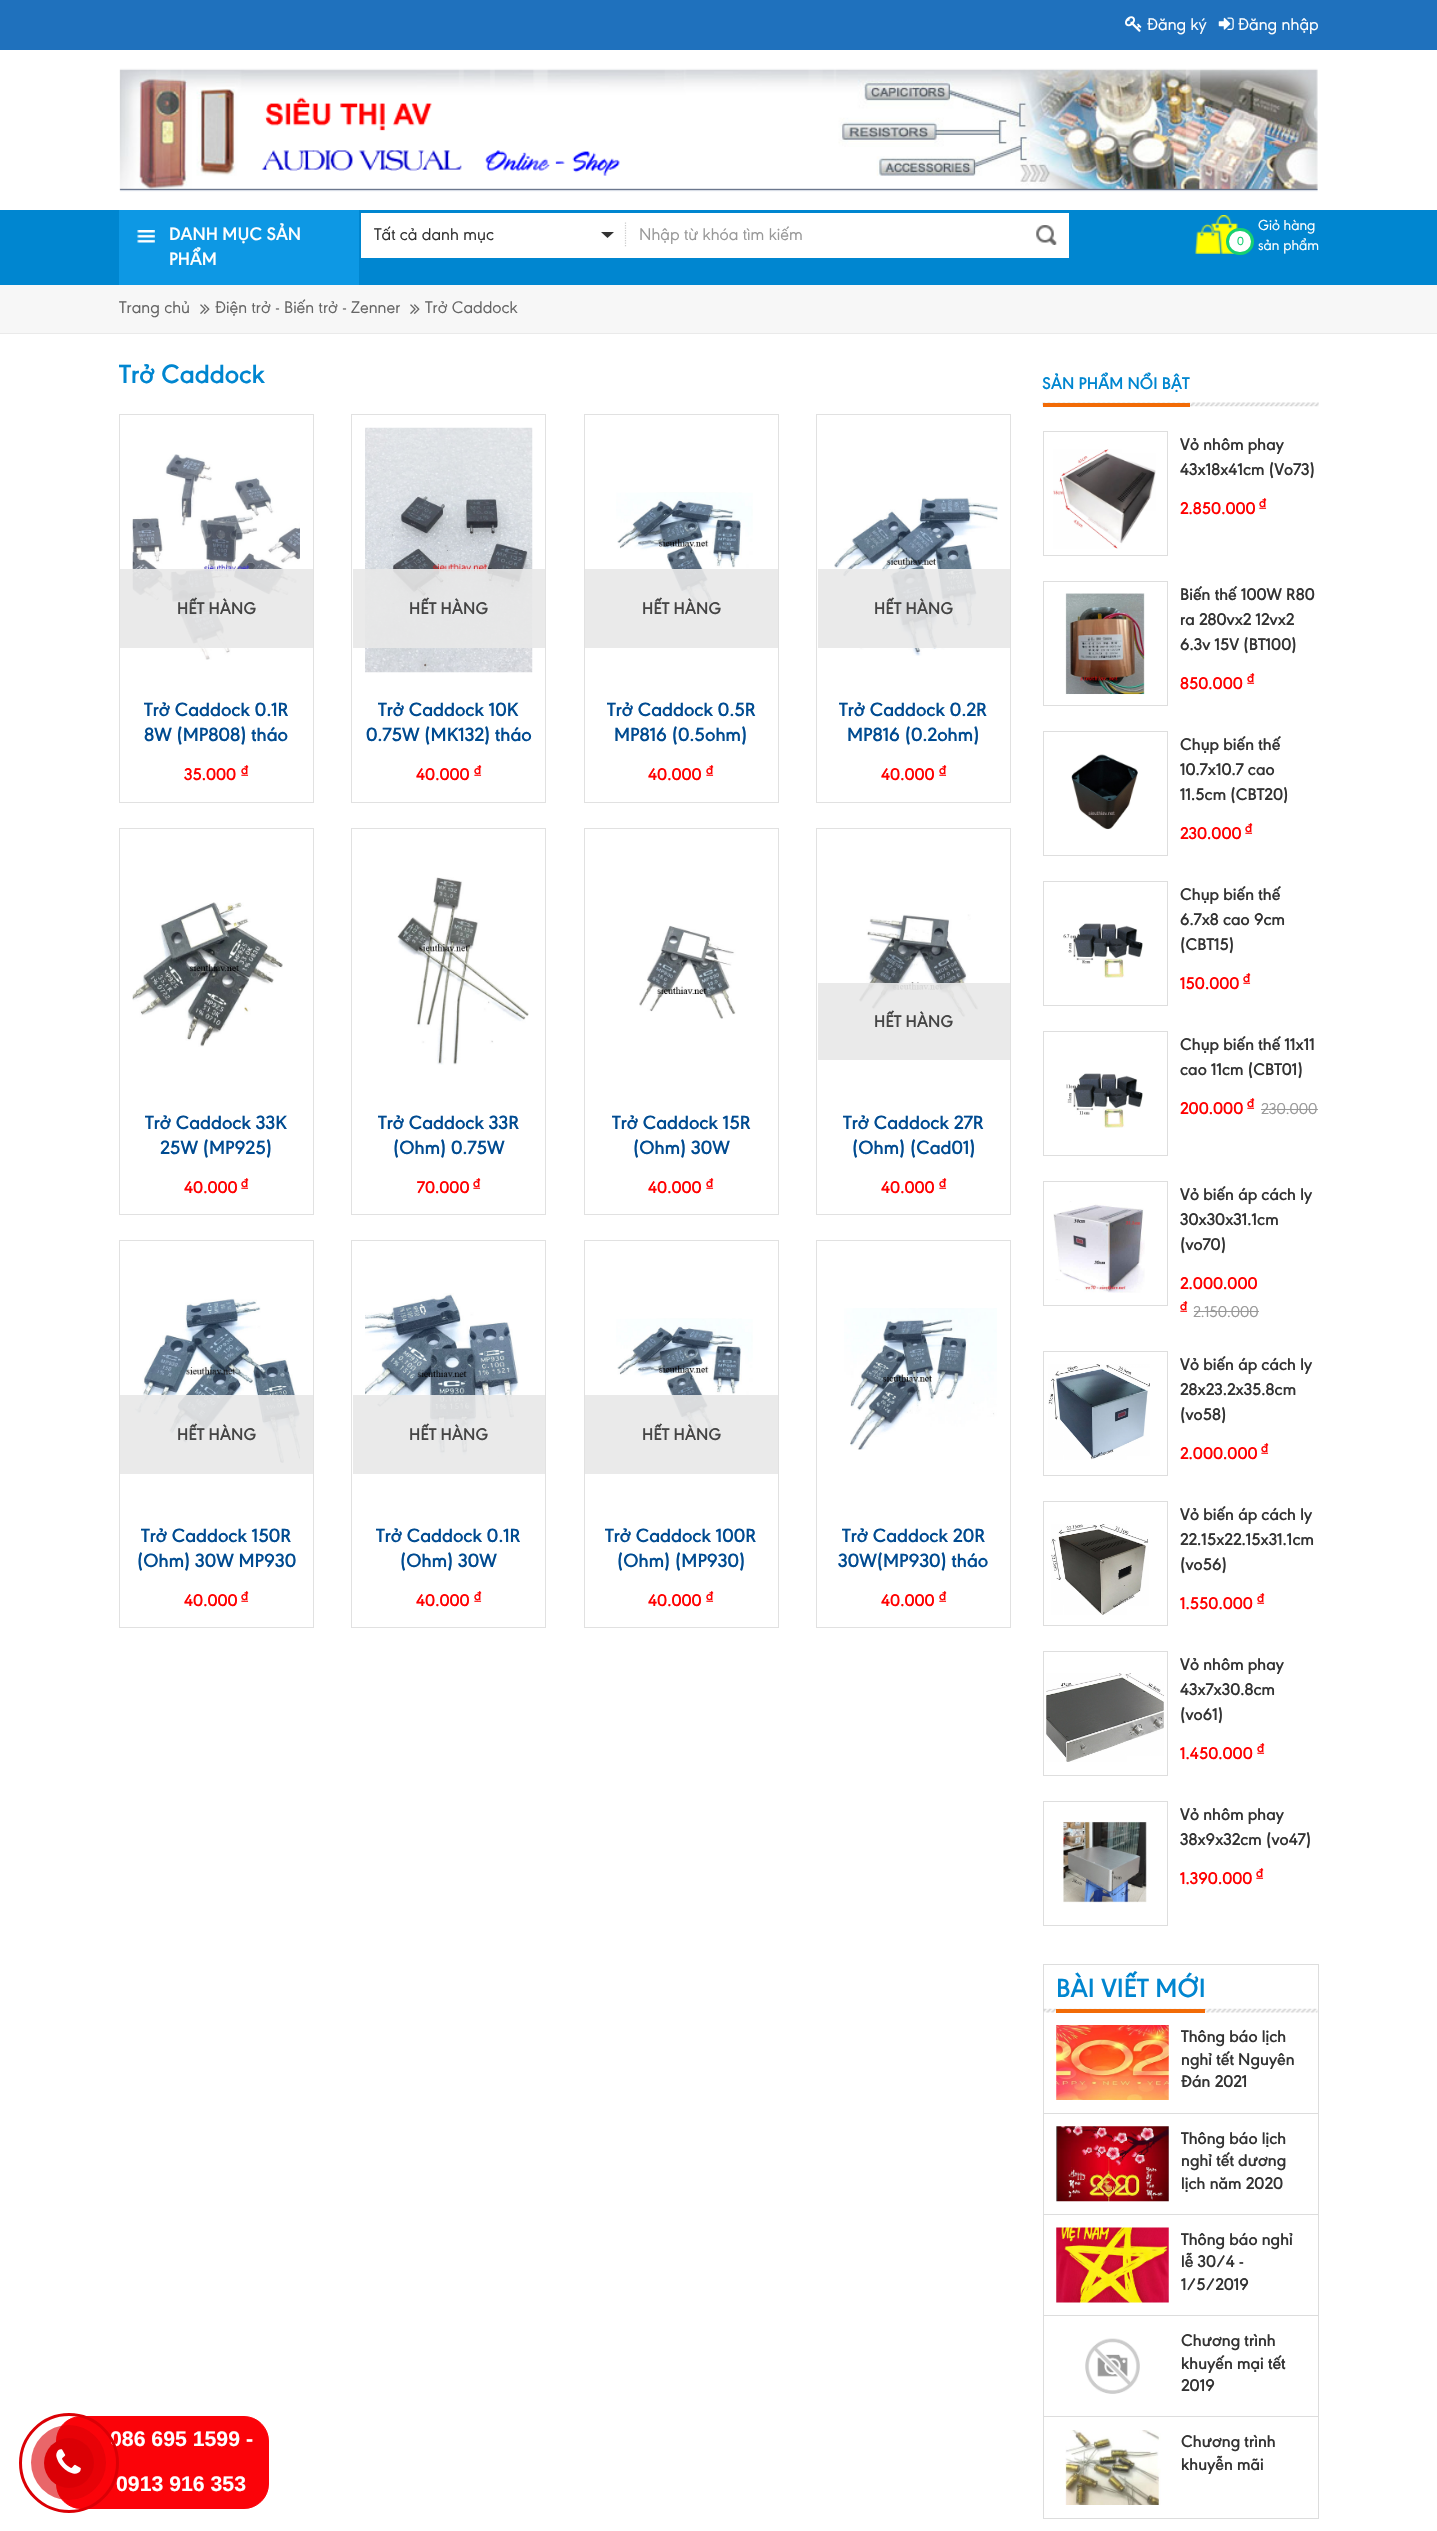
void draw(SkCanvas* canvas) {
	SkPaint paint;
	paint.setAntiAlias(true);
	auto svgPath = [&](const char* data, bool evenOdd = false) {
		SkPath result = *SkParsePath::FromSVGString(data);
		if (evenOdd) result.setFillType(SkPathFillType::kEvenOdd);
		return result;
	};
	canvas->clear(0xffffffff);
	paint.setColor(0xff1f71bd);
	canvas->drawRect(SkRect::MakeXYWH(0, 0, 1437, 50), paint);
	canvas->drawImageRect(SkImages::DeferredFromEncodedData(SkData::MakeFromFileName("img1.png")), SkRect::MakeXYWH(1125, 16, 17, 16), SkSamplingOptions());
	SkFont f1(fontMgr->matchFamilyStyle("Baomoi", SkFontStyle::Normal()), 17.5);
	f1.setSubpixel(true);
	paint.setColor(0xffffffff);
	canvas->drawString("Đăng ký", 1147, 30, f1, paint);
	canvas->drawImageRect(SkImages::DeferredFromEncodedData(SkData::MakeFromFileName("img2.png")), SkRect::MakeXYWH(1218, 17, 16, 13), SkSamplingOptions());
	canvas->drawString("Đăng nhập", 1238, 30, f1, paint);
	canvas->drawImageRect(SkImages::DeferredFromEncodedData(SkData::MakeFromFileName("img3.png")), SkRect::MakeXYWH(119, 68, 1199, 124), SkSamplingOptions());
	paint.setColor(0xff0086d0);
	canvas->drawRect(SkRect::MakeXYWH(0, 210, 1437, 75), paint);
	paint.setColor(0xff0d98e4);
	canvas->drawRect(SkRect::MakeXYWH(119, 210, 240, 75), paint);
	canvas->drawImageRect(SkImages::DeferredFromEncodedData(SkData::MakeFromFileName("img4.png")), SkRect::MakeXYWH(137, 230, 18, 13), SkSamplingOptions());
	SkFont f2(fontMgr->matchFamilyStyle("Baomoi", SkFontStyle(600, SkFontStyle::kNormal_Width, SkFontStyle::kUpright_Slant)), 18.75);
	f2.setSubpixel(true);
	paint.setColor(0xffffffff);
	canvas->drawString("DANH MỤC SẢN", 169, 240, f2, paint);
	canvas->drawString("PHẨM", 169, 265, f2, paint);
	canvas->drawRect(SkRect::MakeXYWH(361, 213, 708, 45), paint);
	paint.setColor(0xff333333);
	canvas->drawString("Tất cả danh mục", 374, 240, f1, paint);
	canvas->drawPath(svgPath("M601 232H614L607.5 238Z"), paint);
	paint.setStroke(true);
	paint.setStrokeWidth(1.2);
	paint.setColor(0xffcccccc);
	paint.setPathEffect(SkDashPathEffect::Make({{1.25f, 1.25f}}, 0));
	canvas->drawPath(svgPath("M625.5 222.5V247.5"), paint);
	paint.setPathEffect(nullptr);
	paint.setStroke(false);
	paint.setColor(0xff999999);
	canvas->drawString("Nhập từ khóa tìm kiếm", 639, 240, f1, paint);
	canvas->drawImageRect(SkImages::DeferredFromEncodedData(SkData::MakeFromFileName("img5.png")), SkRect::MakeXYWH(1036, 225, 21, 20), SkSamplingOptions());
	canvas->drawImageRect(SkImages::DeferredFromEncodedData(SkData::MakeFromFileName("img6.png")), SkRect::MakeXYWH(1195, 215, 43, 39), SkSamplingOptions());
	SkFont f3(fontMgr->matchFamilyStyle("Baomoi", SkFontStyle::Normal()), 15);
	f3.setSubpixel(true);
	paint.setColor(0xffffffff);
	canvas->drawString("Giỏ hàng", 1258, 230, f3, paint);
	canvas->drawRoundRect(SkRect::MakeXYWH(1227.5, 229.5, 25, 24), 12, 12, paint);
	paint.setStroke(true);
	paint.setStrokeWidth(3);
	paint.setColor(0xff17d071);
	canvas->drawRoundRect(SkRect::MakeXYWH(1227.5, 229.5, 25, 24), 12, 12, paint);
	SkFont f4(fontMgr->matchFamilyStyle("Baomoi", SkFontStyle::Normal()), 12);
	f4.setSubpixel(true);
	paint.setStroke(false);
	canvas->drawString("0", 1237, 245, f4, paint);
	paint.setColor(0xffffffff);
	canvas->drawString("sản phẩm", 1258, 250, f3, paint);
	paint.setColor(0xfff7f7f7);
	canvas->drawRect(SkRect::MakeXYWH(0, 285, 1437, 48), paint);
	paint.setColor(0xffeaeaea);
	canvas->drawRect(SkRect::MakeXYWH(0, 333, 1437, 1), paint);
	paint.setColor(0xff666666);
	canvas->drawString("Trang chủ", 119, 313, f1, paint);
	canvas->drawImageRect(SkImages::DeferredFromEncodedData(SkData::MakeFromFileName("img7.png")), SkRect::MakeXYWH(200, 304, 10, 10), SkSamplingOptions());
	canvas->drawString("Điện trở - Biến trở - Zenner", 215, 313, f1, paint);
	canvas->drawImageRect(SkImages::DeferredFromEncodedData(SkData::MakeFromFileName("img7.png")), SkRect::MakeXYWH(410, 304, 10, 10), SkSamplingOptions());
	canvas->drawString("Trở Caddock", 425, 313, f1, paint);
	SkFont f5(fontMgr->matchFamilyStyle("Baomoi", SkFontStyle(600, SkFontStyle::kNormal_Width, SkFontStyle::kUpright_Slant)), 27.5);
	f5.setSubpixel(true);
	paint.setColor(0xff0086d0);
	canvas->drawString("Trở Caddock", 119, 383, f5, paint);
	paint.setStroke(true);
	paint.setStrokeWidth(1);
	paint.setColor(0xffe1e1e1);
	canvas->drawRect(SkRect::MakeXYWH(119.5, 414.5, 194, 388), paint);
	canvas->drawImageRect(SkImages::DeferredFromEncodedData(SkData::MakeFromFileName("img8.png")), SkRect::MakeXYWH(132, 454, 168, 206), SkSamplingOptions());
	paint.setStroke(false);
	paint.setColor(0xe6e8e8e8);
	canvas->drawRect(SkRect::MakeXYWH(120, 569, 193, 79), paint);
	SkFont f6(fontMgr->matchFamilyStyle("Baomoi", SkFontStyle(600, SkFontStyle::kNormal_Width, SkFontStyle::kUpright_Slant)), 17.5);
	f6.setSubpixel(true);
	paint.setColor(0xff454545);
	canvas->drawString("HẾT HÀNG", 177, 614, f6, paint);
	SkFont f7(fontMgr->matchFamilyStyle("Baomoi", SkFontStyle(600, SkFontStyle::kNormal_Width, SkFontStyle::kUpright_Slant)), 20);
	f7.setSubpixel(true);
	paint.setColor(0xff004b91);
	canvas->drawString("Trở Caddock 0.1R", 144, 716, f7, paint);
	canvas->drawString("8W (MP808) tháo", 144, 741, f7, paint);
	paint.setColor(0xffff0000);
	canvas->drawString("35.000", 184, 780, f6, paint);
	SkFont f8(fontMgr->matchFamilyStyle("Baomoi", SkFontStyle(600, SkFontStyle::kNormal_Width, SkFontStyle::kUpright_Slant)), 13);
	f8.setSubpixel(true);
	canvas->drawString("₫", 241, 774, f8, paint);
	paint.setStroke(true);
	paint.setColor(0xffe1e1e1);
	canvas->drawRect(SkRect::MakeXYWH(351.5, 414.5, 194, 388), paint);
	canvas->drawImageRect(SkImages::DeferredFromEncodedData(SkData::MakeFromFileName("img9.png")), SkRect::MakeXYWH(365, 427, 168, 246), SkSamplingOptions());
	paint.setStroke(false);
	paint.setColor(0xe6e8e8e8);
	canvas->drawRect(SkRect::MakeXYWH(353, 569, 192, 79), paint);
	paint.setColor(0xff454545);
	canvas->drawString("HẾT HÀNG", 409, 614, f6, paint);
	paint.setColor(0xff004b91);
	canvas->drawString("Trở Caddock 10K", 378, 716, f7, paint);
	canvas->drawString("0.75W (MK132) tháo", 366, 741, f7, paint);
	paint.setColor(0xffff0000);
	canvas->drawString("40.000", 416, 780, f6, paint);
	canvas->drawString("₫", 474, 774, f8, paint);
	paint.setStroke(true);
	paint.setColor(0xffe1e1e1);
	canvas->drawRect(SkRect::MakeXYWH(584.5, 414.5, 194, 388), paint);
	canvas->drawImageRect(SkImages::DeferredFromEncodedData(SkData::MakeFromFileName("img10.png")), SkRect::MakeXYWH(616, 492, 137, 119), SkSamplingOptions());
	paint.setStroke(false);
	paint.setColor(0xe6e8e8e8);
	canvas->drawRect(SkRect::MakeXYWH(585, 569, 193, 79), paint);
	paint.setColor(0xff454545);
	canvas->drawString("HẾT HÀNG", 642, 614, f6, paint);
	paint.setColor(0xff004b91);
	canvas->drawString("Trở Caddock 0.5R", 607, 716, f7, paint);
	canvas->drawString("MP816 (0.5ohm)", 614, 741, f7, paint);
	paint.setColor(0xffff0000);
	canvas->drawString("40.000", 648, 780, f6, paint);
	canvas->drawString("₫", 706, 774, f8, paint);
	paint.setStroke(true);
	paint.setColor(0xffe1e1e1);
	canvas->drawRect(SkRect::MakeXYWH(816.5, 414.5, 194, 388), paint);
	canvas->drawImageRect(SkImages::DeferredFromEncodedData(SkData::MakeFromFileName("img11.png")), SkRect::MakeXYWH(834, 497, 164, 159), SkSamplingOptions());
	paint.setStroke(false);
	paint.setColor(0xe6e8e8e8);
	canvas->drawRect(SkRect::MakeXYWH(818, 569, 192, 79), paint);
	paint.setColor(0xff454545);
	canvas->drawString("HẾT HÀNG", 874, 614, f6, paint);
	paint.setColor(0xff004b91);
	canvas->drawString("Trở Caddock 0.2R", 839, 716, f7, paint);
	canvas->drawString("MP816 (0.2ohm)", 847, 741, f7, paint);
	paint.setColor(0xffff0000);
	canvas->drawString("40.000", 881, 780, f6, paint);
	canvas->drawString("₫", 939, 774, f8, paint);
	paint.setStroke(true);
	paint.setColor(0xffe1e1e1);
	canvas->drawRect(SkRect::MakeXYWH(119.5, 828.5, 194, 386), paint);
	canvas->drawImageRect(SkImages::DeferredFromEncodedData(SkData::MakeFromFileName("img12.png")), SkRect::MakeXYWH(132, 902, 151, 145), SkSamplingOptions());
	paint.setStroke(false);
	paint.setColor(0xff004b91);
	canvas->drawString("Trở Caddock 33K", 145, 1129, f7, paint);
	canvas->drawString("25W (MP925)", 160, 1154, f7, paint);
	paint.setColor(0xffff0000);
	canvas->drawString("40.000", 184, 1193, f6, paint);
	canvas->drawString("₫", 241, 1187, f8, paint);
	paint.setStroke(true);
	paint.setColor(0xffe1e1e1);
	canvas->drawRect(SkRect::MakeXYWH(351.5, 828.5, 194, 386), paint);
	canvas->drawImageRect(SkImages::DeferredFromEncodedData(SkData::MakeFromFileName("img13.png")), SkRect::MakeXYWH(397, 877, 132, 188), SkSamplingOptions());
	paint.setStroke(false);
	paint.setColor(0xff004b91);
	canvas->drawString("Trở Caddock 33R", 378, 1129, f7, paint);
	canvas->drawString("(Ohm) 0.75W", 393, 1154, f7, paint);
	paint.setColor(0xffff0000);
	canvas->drawString("70.000", 417, 1193, f6, paint);
	canvas->drawString("₫", 473, 1187, f8, paint);
	paint.setStroke(true);
	paint.setColor(0xffe1e1e1);
	canvas->drawRect(SkRect::MakeXYWH(584.5, 828.5, 194, 386), paint);
	canvas->drawImageRect(SkImages::DeferredFromEncodedData(SkData::MakeFromFileName("img14.png")), SkRect::MakeXYWH(639, 925, 97, 94), SkSamplingOptions());
	paint.setStroke(false);
	paint.setColor(0xff004b91);
	canvas->drawString("Trở Caddock 15R", 612, 1129, f7, paint);
	canvas->drawString("(Ohm) 30W", 633, 1154, f7, paint);
	paint.setColor(0xffff0000);
	canvas->drawString("40.000", 648, 1193, f6, paint);
	canvas->drawString("₫", 706, 1187, f8, paint);
	paint.setStroke(true);
	paint.setColor(0xffe1e1e1);
	canvas->drawRect(SkRect::MakeXYWH(816.5, 828.5, 194, 386), paint);
	canvas->drawImageRect(SkImages::DeferredFromEncodedData(SkData::MakeFromFileName("img15.png")), SkRect::MakeXYWH(859, 914, 120, 104), SkSamplingOptions());
	paint.setStroke(false);
	paint.setColor(0xe6e8e8e8);
	canvas->drawRect(SkRect::MakeXYWH(818, 983, 192, 77), paint);
	paint.setColor(0xff454545);
	canvas->drawString("HẾT HÀNG", 874, 1027, f6, paint);
	paint.setColor(0xff004b91);
	canvas->drawString("Trở Caddock 27R", 843, 1129, f7, paint);
	canvas->drawString("(Ohm) (Cad01)", 852, 1154, f7, paint);
	paint.setColor(0xffff0000);
	canvas->drawString("40.000", 881, 1193, f6, paint);
	canvas->drawString("₫", 939, 1187, f8, paint);
	paint.setStroke(true);
	paint.setColor(0xffe1e1e1);
	canvas->drawRect(SkRect::MakeXYWH(119.5, 1240.5, 194, 387), paint);
	canvas->drawImageRect(SkImages::DeferredFromEncodedData(SkData::MakeFromFileName("img16.png")), SkRect::MakeXYWH(133, 1298, 167, 165), SkSamplingOptions());
	paint.setStroke(false);
	paint.setColor(0xe6e8e8e8);
	canvas->drawRect(SkRect::MakeXYWH(120, 1395, 193, 79), paint);
	paint.setColor(0xff454545);
	canvas->drawString("HẾT HÀNG", 177, 1440, f6, paint);
	paint.setColor(0xff004b91);
	canvas->drawString("Trở Caddock 150R", 141, 1542, f7, paint);
	canvas->drawString("(Ohm) 30W MP930", 137, 1567, f7, paint);
	paint.setColor(0xffff0000);
	canvas->drawString("40.000", 184, 1606, f6, paint);
	canvas->drawString("₫", 241, 1600, f8, paint);
	paint.setStroke(true);
	paint.setColor(0xffe1e1e1);
	canvas->drawRect(SkRect::MakeXYWH(351.5, 1240.5, 194, 387), paint);
	canvas->drawImageRect(SkImages::DeferredFromEncodedData(SkData::MakeFromFileName("img17.png")), SkRect::MakeXYWH(365, 1293, 154, 165), SkSamplingOptions());
	paint.setStroke(false);
	paint.setColor(0xe6e8e8e8);
	canvas->drawRect(SkRect::MakeXYWH(353, 1395, 192, 79), paint);
	paint.setColor(0xff454545);
	canvas->drawString("HẾT HÀNG", 409, 1440, f6, paint);
	paint.setColor(0xff004b91);
	canvas->drawString("Trở Caddock 0.1R", 376, 1542, f7, paint);
	canvas->drawString("(Ohm) 30W", 400, 1567, f7, paint);
	paint.setColor(0xffff0000);
	canvas->drawString("40.000", 416, 1606, f6, paint);
	canvas->drawString("₫", 474, 1600, f8, paint);
	paint.setStroke(true);
	paint.setColor(0xffe1e1e1);
	canvas->drawRect(SkRect::MakeXYWH(584.5, 1240.5, 194, 387), paint);
	canvas->drawImageRect(SkImages::DeferredFromEncodedData(SkData::MakeFromFileName("img18.png")), SkRect::MakeXYWH(616, 1318, 137, 119), SkSamplingOptions());
	paint.setStroke(false);
	paint.setColor(0xe6e8e8e8);
	canvas->drawRect(SkRect::MakeXYWH(585, 1395, 193, 79), paint);
	paint.setColor(0xff454545);
	canvas->drawString("HẾT HÀNG", 642, 1440, f6, paint);
	paint.setColor(0xff004b91);
	canvas->drawString("Trở Caddock 100R", 605, 1542, f7, paint);
	canvas->drawString("(Ohm) (MP930)", 617, 1567, f7, paint);
	paint.setColor(0xffff0000);
	canvas->drawString("40.000", 648, 1606, f6, paint);
	canvas->drawString("₫", 706, 1600, f8, paint);
	paint.setStroke(true);
	paint.setColor(0xffe1e1e1);
	canvas->drawRect(SkRect::MakeXYWH(816.5, 1240.5, 194, 387), paint);
	canvas->drawImageRect(SkImages::DeferredFromEncodedData(SkData::MakeFromFileName("img19.png")), SkRect::MakeXYWH(844, 1308, 153, 142), SkSamplingOptions());
	paint.setStroke(false);
	paint.setColor(0xff004b91);
	canvas->drawString("Trở Caddock 20R", 842, 1542, f7, paint);
	canvas->drawString("30W(MP930) tháo", 838, 1567, f7, paint);
	paint.setColor(0xffff0000);
	canvas->drawString("40.000", 881, 1606, f6, paint);
	canvas->drawString("₫", 939, 1600, f8, paint);
	canvas->drawImageRect(SkImages::DeferredFromEncodedData(SkData::MakeFromFileName("img20.png")), SkRect::MakeXYWH(1042, 402, 277, 5), SkSamplingOptions());
	paint.setColor(0xff0086d0);
	canvas->drawString("SẢN PHẨM NỔI BẬT", 1042, 389, f6, paint);
	paint.setColor(0xfff26b06);
	canvas->drawRect(SkRect::MakeXYWH(1043, 403, 147, 4), paint);
	paint.setStroke(true);
	paint.setColor(0xffdedede);
	canvas->drawRect(SkRect::MakeXYWH(1043.5, 431.5, 124, 124), paint);
	canvas->drawImageRect(SkImages::DeferredFromEncodedData(SkData::MakeFromFileName("img21.png")), SkRect::MakeXYWH(1053, 449, 103, 100), SkSamplingOptions());
	paint.setStroke(false);
	paint.setColor(0xff333333);
	canvas->drawString("Vỏ nhôm phay", 1180, 450, f6, paint);
	canvas->drawString("43x18x41cm (Vo73)", 1180, 475, f6, paint);
	paint.setColor(0xffff0000);
	canvas->drawString("2.850.000", 1180, 514, f6, paint);
	canvas->drawString("₫", 1259, 507, f8, paint);
	paint.setStroke(true);
	paint.setColor(0xffdedede);
	canvas->drawRect(SkRect::MakeXYWH(1043.5, 581.5, 124, 124), paint);
	canvas->drawImageRect(SkImages::DeferredFromEncodedData(SkData::MakeFromFileName("img22.png")), SkRect::MakeXYWH(1065, 593, 80, 102), SkSamplingOptions());
	paint.setStroke(false);
	paint.setColor(0xff333333);
	canvas->drawString("Biến thế 100W R80", 1180, 600, f6, paint);
	canvas->drawString("ra 280vx2 12vx2", 1180, 625, f6, paint);
	canvas->drawString("6.3v 15V (BT100)", 1180, 650, f6, paint);
	paint.setColor(0xffff0000);
	canvas->drawString("850.000", 1180, 689, f6, paint);
	canvas->drawString("₫", 1247, 682, f8, paint);
	paint.setStroke(true);
	paint.setColor(0xffdedede);
	canvas->drawRect(SkRect::MakeXYWH(1043.5, 731.5, 124, 124), paint);
	canvas->drawImageRect(SkImages::DeferredFromEncodedData(SkData::MakeFromFileName("img23.png")), SkRect::MakeXYWH(1071, 754, 67, 76), SkSamplingOptions());
	paint.setStroke(false);
	paint.setColor(0xff333333);
	canvas->drawString("Chụp biến thế", 1180, 750, f6, paint);
	canvas->drawString("10.7x10.7 cao", 1180, 775, f6, paint);
	canvas->drawString("11.5cm (CBT20)", 1180, 800, f6, paint);
	paint.setColor(0xffff0000);
	canvas->drawString("230.000", 1180, 839, f6, paint);
	canvas->drawString("₫", 1245, 832, f8, paint);
	paint.setStroke(true);
	paint.setColor(0xffdedede);
	canvas->drawRect(SkRect::MakeXYWH(1043.5, 881.5, 124, 124), paint);
	canvas->drawImageRect(SkImages::DeferredFromEncodedData(SkData::MakeFromFileName("img24.png")), SkRect::MakeXYWH(1063, 923, 80, 55), SkSamplingOptions());
	paint.setStroke(false);
	paint.setColor(0xff333333);
	canvas->drawString("Chụp biến thế", 1180, 900, f6, paint);
	canvas->drawString("6.7x8 cao 9cm", 1180, 925, f6, paint);
	canvas->drawString("(CBT15)", 1180, 950, f6, paint);
	paint.setColor(0xffff0000);
	canvas->drawString("150.000", 1180, 989, f6, paint);
	canvas->drawString("₫", 1243, 982, f8, paint);
	paint.setStroke(true);
	paint.setColor(0xffdedede);
	canvas->drawRect(SkRect::MakeXYWH(1043.5, 1031.5, 124, 124), paint);
	canvas->drawImageRect(SkImages::DeferredFromEncodedData(SkData::MakeFromFileName("img25.png")), SkRect::MakeXYWH(1066, 1073, 77, 55), SkSamplingOptions());
	paint.setStroke(false);
	paint.setColor(0xff333333);
	canvas->drawString("Chụp biến thế 11x11", 1180, 1050, f6, paint);
	canvas->drawString("cao 11cm (CBT01)", 1180, 1075, f6, paint);
	paint.setColor(0xffff0000);
	canvas->drawString("200.000", 1180, 1114, f6, paint);
	canvas->drawString("₫", 1247, 1107, f8, paint);
	SkFont f9(fontMgr->matchFamilyStyle("Baomoi", SkFontStyle::Normal()), 16.25);
	f9.setSubpixel(true);
	paint.setColor(0xff999999);
	canvas->drawString("230.000", 1261, 1114, f9, paint);
	canvas->drawRect(SkRect::MakeXYWH(1261, 1109, 57, 1), paint);
	paint.setStroke(true);
	paint.setColor(0xffdedede);
	canvas->drawRect(SkRect::MakeXYWH(1043.5, 1181.5, 124, 124), paint);
	canvas->drawImageRect(SkImages::DeferredFromEncodedData(SkData::MakeFromFileName("img26.png")), SkRect::MakeXYWH(1053, 1201, 92, 92), SkSamplingOptions());
	paint.setStroke(false);
	paint.setColor(0xff333333);
	canvas->drawString("Vỏ biến áp cách ly", 1180, 1200, f6, paint);
	canvas->drawString("30x30x31.1cm", 1180, 1225, f6, paint);
	canvas->drawString("(vo70)", 1180, 1250, f6, paint);
	paint.setColor(0xffff0000);
	canvas->drawString("2.000.000", 1180, 1289, f6, paint);
	canvas->drawString("₫", 1180, 1310, f8, paint);
	paint.setColor(0xff999999);
	canvas->drawString("2.150.000", 1193, 1317, f9, paint);
	canvas->drawRect(SkRect::MakeXYWH(1194, 1311, 65, 1), paint);
	paint.setStroke(true);
	paint.setColor(0xffdedede);
	canvas->drawRect(SkRect::MakeXYWH(1043.5, 1351.5, 124, 124), paint);
	canvas->drawImageRect(SkImages::DeferredFromEncodedData(SkData::MakeFromFileName("img27.png")), SkRect::MakeXYWH(1048, 1364, 102, 96), SkSamplingOptions());
	paint.setStroke(false);
	paint.setColor(0xff333333);
	canvas->drawString("Vỏ biến áp cách ly", 1180, 1370, f6, paint);
	canvas->drawString("28x23.2x35.8cm", 1180, 1395, f6, paint);
	canvas->drawString("(vo58)", 1180, 1420, f6, paint);
	paint.setColor(0xffff0000);
	canvas->drawString("2.000.000", 1180, 1459, f6, paint);
	canvas->drawString("₫", 1261, 1452, f8, paint);
	paint.setStroke(true);
	paint.setColor(0xffdedede);
	canvas->drawRect(SkRect::MakeXYWH(1043.5, 1501.5, 124, 124), paint);
	canvas->drawImageRect(SkImages::DeferredFromEncodedData(SkData::MakeFromFileName("img28.png")), SkRect::MakeXYWH(1051, 1524, 98, 91), SkSamplingOptions());
	paint.setStroke(false);
	paint.setColor(0xff333333);
	canvas->drawString("Vỏ biến áp cách ly", 1180, 1520, f6, paint);
	canvas->drawString("22.15x22.15x31.1cm", 1180, 1545, f6, paint);
	canvas->drawString("(vo56)", 1180, 1570, f6, paint);
	paint.setColor(0xffff0000);
	canvas->drawString("1.550.000", 1180, 1609, f6, paint);
	canvas->drawString("₫", 1257, 1602, f8, paint);
	paint.setStroke(true);
	paint.setColor(0xffdedede);
	canvas->drawRect(SkRect::MakeXYWH(1043.5, 1651.5, 124, 124), paint);
	canvas->drawImageRect(SkImages::DeferredFromEncodedData(SkData::MakeFromFileName("img29.png")), SkRect::MakeXYWH(1046, 1673, 118, 89), SkSamplingOptions());
	paint.setStroke(false);
	paint.setColor(0xff333333);
	canvas->drawString("Vỏ nhôm phay", 1180, 1670, f6, paint);
	canvas->drawString("43x7x30.8cm", 1180, 1695, f6, paint);
	canvas->drawString("(vo61)", 1180, 1720, f6, paint);
	paint.setColor(0xffff0000);
	canvas->drawString("1.450.000", 1180, 1759, f6, paint);
	canvas->drawString("₫", 1257, 1752, f8, paint);
	paint.setStroke(true);
	paint.setColor(0xffdedede);
	canvas->drawRect(SkRect::MakeXYWH(1043.5, 1801.5, 124, 124), paint);
	canvas->drawImageRect(SkImages::DeferredFromEncodedData(SkData::MakeFromFileName("img30.png")), SkRect::MakeXYWH(1063, 1821, 84, 82), SkSamplingOptions());
	paint.setStroke(false);
	paint.setColor(0xff333333);
	canvas->drawString("Vỏ nhôm phay", 1180, 1820, f6, paint);
	canvas->drawString("38x9x32cm (vo47)", 1180, 1845, f6, paint);
	paint.setColor(0xffff0000);
	canvas->drawString("1.390.000", 1180, 1884, f6, paint);
	canvas->drawString("₫", 1256, 1877, f8, paint);
	paint.setStroke(true);
	paint.setColor(0xffdddddd);
	canvas->drawRect(SkRect::MakeXYWH(1043.5, 1964.5, 275, 554), paint);
	paint.setStroke(false);
	paint.setColor(0xff0086d0);
	canvas->drawString("BÀI VIẾT MỚI", 1056, 1997, f5, paint);
	canvas->drawImageRect(SkImages::DeferredFromEncodedData(SkData::MakeFromFileName("img31.png")), SkRect::MakeXYWH(1043, 2008, 275, 5), SkSamplingOptions());
	paint.setColor(0xfff26b06);
	canvas->drawRect(SkRect::MakeXYWH(1056, 2009, 149, 4), paint);
	paint.setColor(0xffdddddd);
	canvas->drawRect(SkRect::MakeXYWH(1044, 2113, 274, 1), paint);
	canvas->drawImageRect(SkImages::DeferredFromEncodedData(SkData::MakeFromFileName("img32.png")), SkRect::MakeXYWH(1056, 2025, 113, 75), SkSamplingOptions());
	paint.setColor(0xff333333);
	canvas->drawString("Thông báo lịch", 1181, 2042, f6, paint);
	canvas->drawString("nghỉ tết Nguyên", 1181, 2065, f6, paint);
	canvas->drawString("Đán 2021", 1181, 2087, f6, paint);
	paint.setColor(0xffdddddd);
	canvas->drawRect(SkRect::MakeXYWH(1044, 2214, 274, 1), paint);
	canvas->drawImageRect(SkImages::DeferredFromEncodedData(SkData::MakeFromFileName("img33.png")), SkRect::MakeXYWH(1056, 2126, 113, 76), SkSamplingOptions());
	paint.setColor(0xff333333);
	canvas->drawString("Thông báo lịch", 1181, 2144, f6, paint);
	canvas->drawString("nghỉ tết dương", 1181, 2166, f6, paint);
	canvas->drawString("lịch năm 2020", 1181, 2189, f6, paint);
	paint.setColor(0xffdddddd);
	canvas->drawRect(SkRect::MakeXYWH(1044, 2315, 274, 1), paint);
	canvas->drawImageRect(SkImages::DeferredFromEncodedData(SkData::MakeFromFileName("img34.png")), SkRect::MakeXYWH(1056, 2227, 113, 76), SkSamplingOptions());
	paint.setColor(0xff333333);
	canvas->drawString("Thông báo nghỉ", 1181, 2245, f6, paint);
	canvas->drawString("lễ 30/4 -", 1181, 2267, f6, paint);
	canvas->drawString("1/5/2019", 1181, 2290, f6, paint);
	paint.setColor(0xffdddddd);
	canvas->drawRect(SkRect::MakeXYWH(1044, 2416, 274, 1), paint);
	canvas->drawImageRect(SkImages::DeferredFromEncodedData(SkData::MakeFromFileName("img35.png")), SkRect::MakeXYWH(1085, 2338, 55, 56), SkSamplingOptions());
	paint.setColor(0xff333333);
	canvas->drawString("Chương trình", 1181, 2346, f6, paint);
	canvas->drawString("khuyến mại tết", 1181, 2369, f6, paint);
	canvas->drawString("2019", 1181, 2391, f6, paint);
	canvas->drawImageRect(SkImages::DeferredFromEncodedData(SkData::MakeFromFileName("img36.png")), SkRect::MakeXYWH(1065, 2430, 96, 75), SkSamplingOptions());
	canvas->drawString("Chương trình", 1181, 2447, f6, paint);
	canvas->drawString("khuyễn mãi", 1181, 2470, f6, paint);
	paint.setColor(0xfffb0309);
	canvas->drawRoundRect(SkRect::MakeXYWH(56.5, 2416.5, 212, 92), 24.5, 24.5, paint);
	paint.setStroke(true);
	canvas->drawRoundRect(SkRect::MakeXYWH(56.5, 2416.5, 212, 92), 24.5, 24.5, paint);
	SkFont f10(fontMgr->matchFamilyStyle("Liberation Sans", SkFontStyle::Bold()), 21.25);
	f10.setSubpixel(true);
	paint.setStroke(false);
	paint.setColor(0xffffffff);
	canvas->drawString("086 695 1599 -", 110, 2446, f10, paint);
	canvas->drawString("0913 916 353", 116, 2491, f10, paint);
	paint.setStroke(true);
	paint.setStrokeWidth(3);
	paint.setColor(0xffdb0005);
	canvas->drawCircle(69, 2463, 48.5, paint);
	paint.setStroke(false);
	paint.setColor(0x99db0005);
	canvas->drawCircle(68.5, 2462.5, 37.5, paint);
	paint.setColor(0xffdb0005);
	canvas->drawCircle(69, 2463, 25, paint);
	canvas->drawImageRect(SkImages::DeferredFromEncodedData(SkData::MakeFromFileName("img37.png")), SkRect::MakeXYWH(56, 2449, 25, 25), SkSamplingOptions());
}
